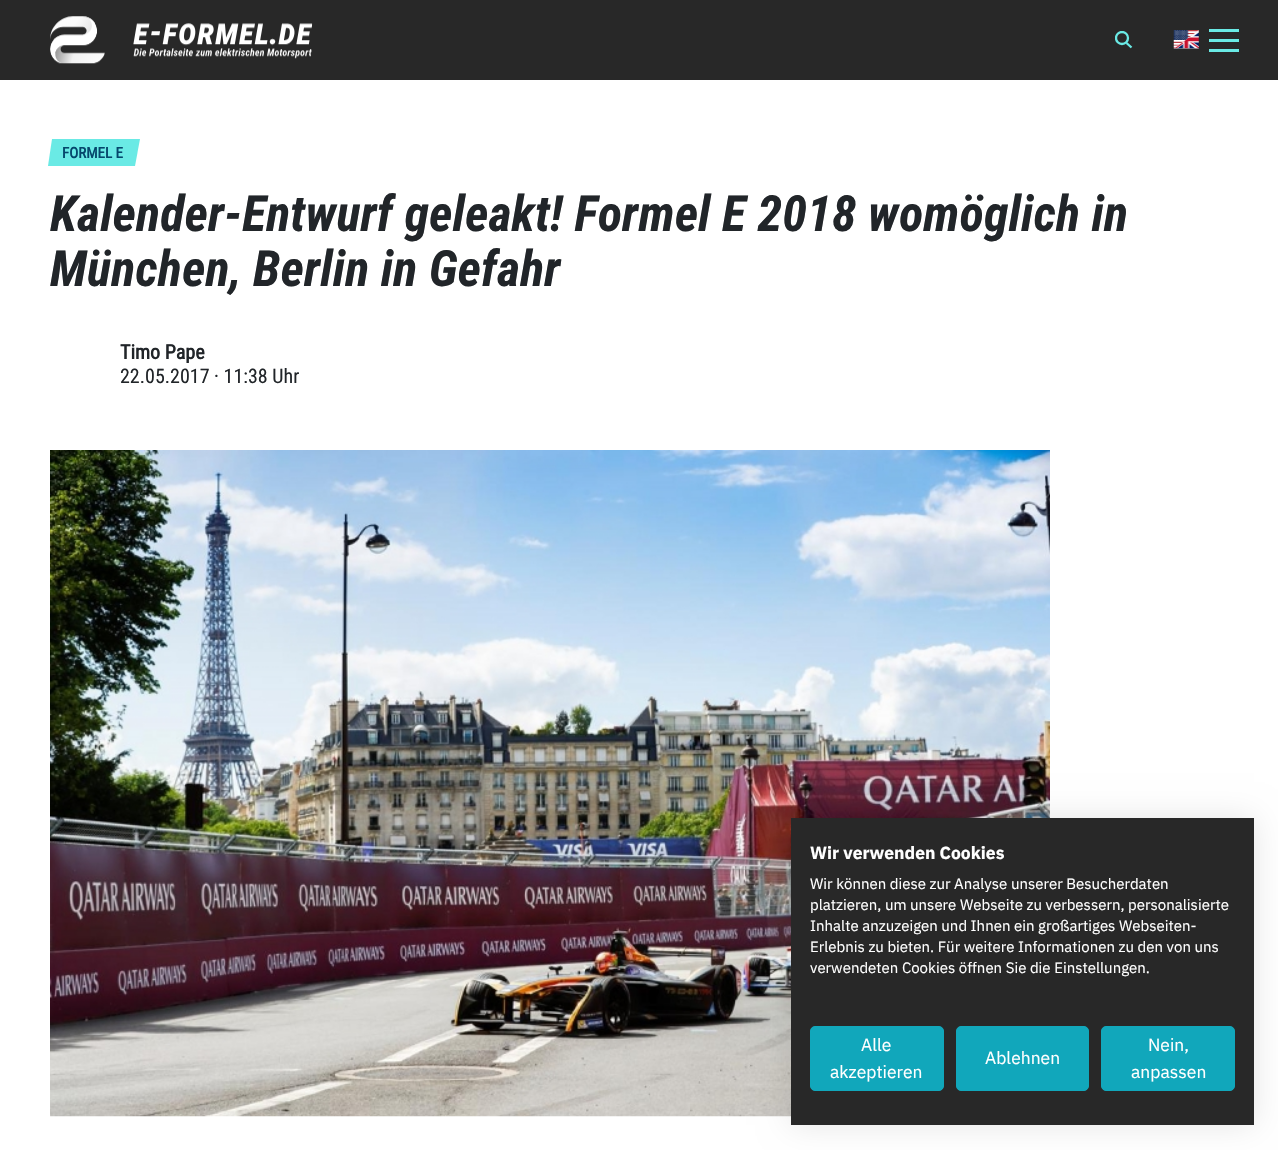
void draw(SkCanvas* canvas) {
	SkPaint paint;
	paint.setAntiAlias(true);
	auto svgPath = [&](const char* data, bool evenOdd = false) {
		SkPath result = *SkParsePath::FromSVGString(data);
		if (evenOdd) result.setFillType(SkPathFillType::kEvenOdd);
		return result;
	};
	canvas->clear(0xffffffff);
	paint.setColor(0xff282828);
	canvas->drawRect(SkRect::MakeXYWH(0, 0, 1278, 80), paint);
	canvas->drawImageRect(SkImages::DeferredFromEncodedData(SkData::MakeFromFileName("img1.png")), SkRect::MakeXYWH(50, 16, 263, 48), SkSamplingOptions());
	canvas->save();
	canvas->clipRect(SkRect::MakeXYWH(1115, 31, 18, 18));
	paint.setStroke(true);
	paint.setStrokeWidth(2.3);
	paint.setColor(0xff6aeae5);
	canvas->drawCircle(1122, 38, 6, paint);
	canvas->restore();
	canvas->drawPath(svgPath("M1126.5 43L1131.5 47.5"), paint);
	canvas->drawImageRect(SkImages::DeferredFromEncodedData(SkData::MakeFromFileName("img2.png")), SkRect::MakeXYWH(1173, 30, 26, 19), SkSamplingOptions());
	paint.setStroke(false);
	canvas->drawRect(SkRect::MakeXYWH(1209, 29, 30, 3), paint);
	canvas->drawRect(SkRect::MakeXYWH(1209, 39, 30, 3), paint);
	canvas->drawRect(SkRect::MakeXYWH(1209, 49, 30, 3), paint);
	canvas->drawPath(svgPath("M52 139H140L135 166H48Z"), paint);
	SkFont f1(fontMgr->matchFamilyStyle("Roboto Condensed", SkFontStyle::Bold()), 15);
	f1.setSubpixel(true);
	paint.setColor(0xff05476c);
	canvas->drawString("FORMEL E", 62, 158, f1, paint);
	SkFont f2(fontMgr->matchFamilyStyle("Roboto Condensed", SkFontStyle::BoldItalic()), 50);
	f2.setSubpixel(true);
	paint.setColor(0xff212529);
	canvas->drawString("Kalender-Entwurf geleakt! Formel E 2018 womöglich in", 50, 231, f2, paint);
	canvas->drawString("München, Berlin in Gefahr", 50, 286, f2, paint);
	SkFont f3(fontMgr->matchFamilyStyle("Roboto Condensed", SkFontStyle::Bold()), 20);
	f3.setSubpixel(true);
	canvas->drawString("Timo Pape", 120, 359, f3, paint);
	SkFont f4(fontMgr->matchFamilyStyle("Roboto Condensed", SkFontStyle::Normal()), 20);
	f4.setSubpixel(true);
	canvas->drawString("22.05.2017 · 11:38 Uhr", 120, 383, f4, paint);
	canvas->drawImageRect(SkImages::DeferredFromEncodedData(SkData::MakeFromFileName("img3.png")), SkRect::MakeXYWH(50, 450, 1000, 667), SkSamplingOptions());
	paint.setColor(0x1a000000);
	paint.setMaskFilter(SkMaskFilter::MakeBlur(kNormal_SkBlurStyle, 15));
	canvas->drawRect(SkRect::MakeXYWH(791, 818, 463, 307), paint);
	paint.setMaskFilter(nullptr);
	paint.setColor(0xff282828);
	canvas->drawRect(SkRect::MakeXYWH(791, 818, 463, 307), paint);
	SkFont f5(fontMgr->matchFamilyStyle("IBM Plex Sans", SkFontStyle::Bold()), 17.5);
	f5.setSubpixel(true);
	paint.setColor(0xffffffff);
	canvas->drawString("Wir verwenden Cookies", 810, 859, f5, paint);
	SkFont f6(fontMgr->matchFamilyStyle("IBM Plex Sans", SkFontStyle::Normal()), 15);
	f6.setSubpixel(true);
	canvas->drawString("Wir können diese zur Analyse unserer Besucherdaten", 810, 889, f6, paint);
	canvas->drawString("platzieren, um unsere Webseite zu verbessern, personalisierte", 810, 910, f6, paint);
	canvas->drawString("Inhalte anzuzeigen und Ihnen ein großartiges Webseiten-", 810, 931, f6, paint);
	canvas->drawString("Erlebnis zu bieten. Für weitere Informationen zu den von uns", 810, 952, f6, paint);
	canvas->drawString("verwendeten Cookies öffnen Sie die Einstellungen.", 810, 973, f6, paint);
	paint.setColor(0xff11a7bb);
	canvas->drawRoundRect(SkRect::MakeXYWH(810.5, 1026.5, 133, 64), 4.5, 4.5, paint);
	paint.setStroke(true);
	paint.setStrokeWidth(1);
	canvas->drawRoundRect(SkRect::MakeXYWH(810.5, 1026.5, 133, 64), 4.5, 4.5, paint);
	SkFont f7(fontMgr->matchFamilyStyle("IBM Plex Sans", SkFontStyle::Normal()), 17.5);
	f7.setSubpixel(true);
	paint.setStroke(false);
	paint.setColor(0xffffffff);
	canvas->drawString("Alle", 861, 1051, f7, paint);
	canvas->drawString("akzeptieren", 830, 1078, f7, paint);
	paint.setColor(0xff11a7bb);
	canvas->drawRoundRect(SkRect::MakeXYWH(956.5, 1026.5, 132, 64), 4.5, 4.5, paint);
	paint.setStroke(true);
	canvas->drawRoundRect(SkRect::MakeXYWH(956.5, 1026.5, 132, 64), 4.5, 4.5, paint);
	paint.setStroke(false);
	paint.setColor(0xffffffff);
	canvas->drawString("Ablehnen", 985, 1064, f7, paint);
	paint.setColor(0xff11a7bb);
	canvas->drawRoundRect(SkRect::MakeXYWH(1101.5, 1026.5, 133, 64), 4.5, 4.5, paint);
	paint.setStroke(true);
	canvas->drawRoundRect(SkRect::MakeXYWH(1101.5, 1026.5, 133, 64), 4.5, 4.5, paint);
	paint.setStroke(false);
	paint.setColor(0xffffffff);
	canvas->drawString("Nein,", 1148, 1051, f7, paint);
	canvas->drawString("anpassen", 1131, 1078, f7, paint);
}
